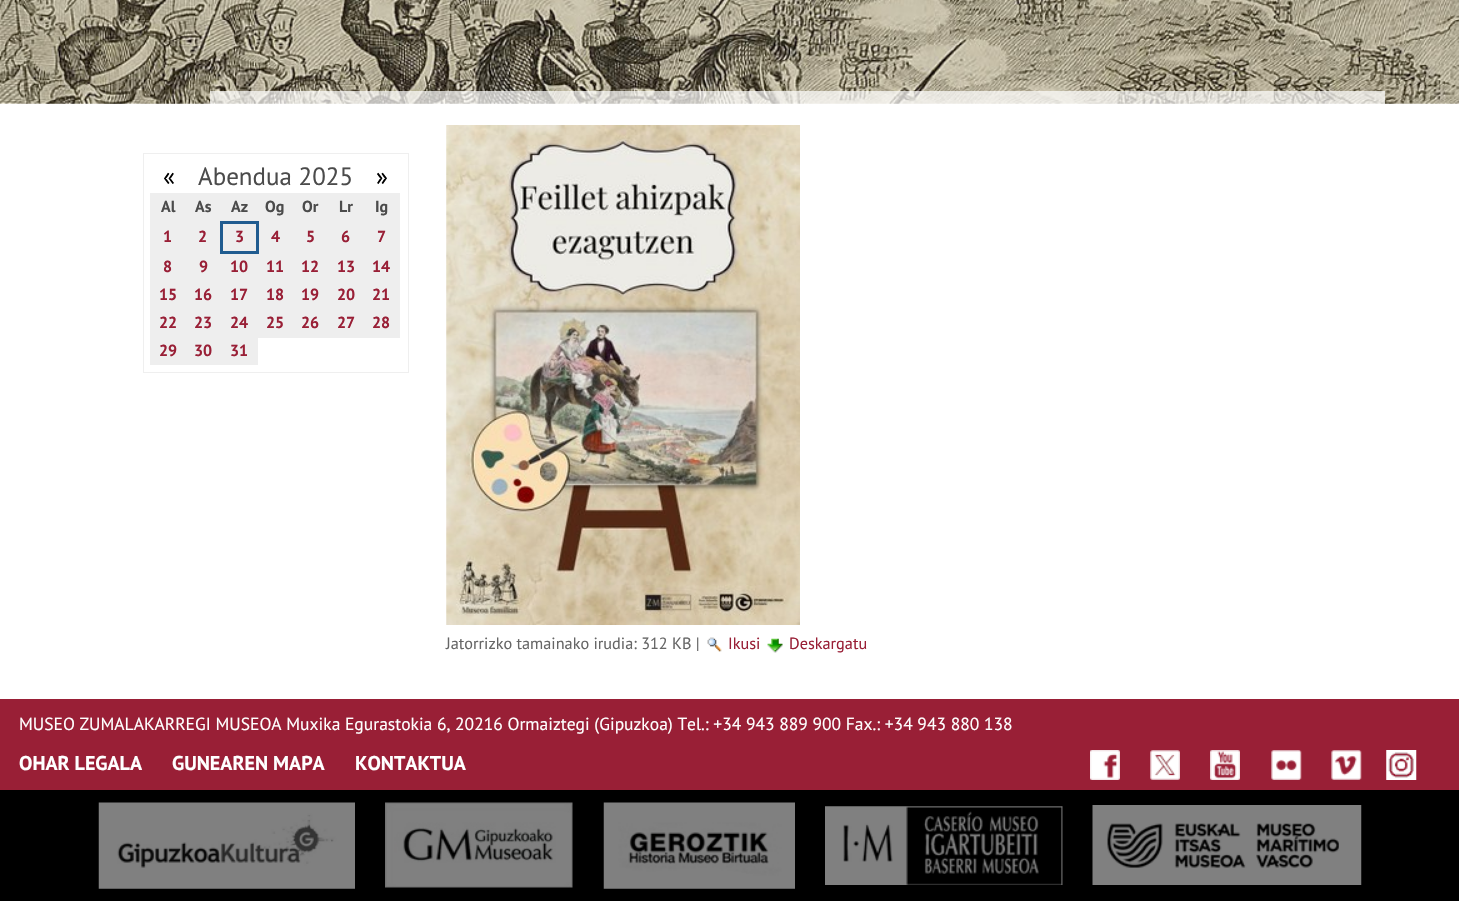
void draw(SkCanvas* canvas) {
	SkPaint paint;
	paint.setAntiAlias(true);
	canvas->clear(0xffffffff);
	canvas->drawImageRect(SkImages::DeferredFromEncodedData(SkData::MakeFromFileName("img1.png")), SkRect::MakeXYWH(0, 0, 1459, 104), SkSamplingOptions());
	paint.setColor(0xb3ffffff);
	canvas->drawRect(SkRect::MakeXYWH(210, 91, 1175, 13), paint);
	paint.setStroke(true);
	paint.setStrokeWidth(1);
	paint.setColor(0xffefefef);
	canvas->drawRect(SkRect::MakeXYWH(143.5, 153.5, 265, 219), paint);
	SkFont f1(fontMgr->matchFamilyStyle("PT Sans", SkFontStyle::Normal()), 25);
	f1.setSubpixel(true);
	paint.setStroke(false);
	paint.setColor(0xff000000);
	canvas->drawString("«", 163, 185, f1, paint);
	paint.setColor(0xff4b4b4b);
	canvas->drawString("Abendua 2025", 198, 185, f1, paint);
	paint.setColor(0xff000000);
	canvas->drawString("»", 376, 185, f1, paint);
	paint.setColor(0xffeeeeee);
	canvas->drawRect(SkRect::MakeXYWH(150, 193, 71, 30), paint);
	SkFont f2(fontMgr->matchFamilyStyle("PT Sans", SkFontStyle::Bold()), 16);
	f2.setSubpixel(true);
	paint.setColor(0xff4b4b4b);
	canvas->drawString("Al", 161, 212, f2, paint);
	canvas->drawString("As", 195, 212, f2, paint);
	paint.setColor(0xffeeeeee);
	canvas->drawRect(SkRect::MakeXYWH(221, 193, 37, 28), paint);
	paint.setColor(0xff4b4b4b);
	canvas->drawString("Az", 231, 212, f2, paint);
	paint.setColor(0xffeeeeee);
	canvas->drawRect(SkRect::MakeXYWH(258, 193, 142, 30), paint);
	paint.setColor(0xff4b4b4b);
	canvas->drawString("Og", 265, 212, f2, paint);
	canvas->drawString("Or", 302, 212, f2, paint);
	canvas->drawString("Lr", 339, 212, f2, paint);
	canvas->drawString("Ig", 375, 212, f2, paint);
	paint.setColor(0xffeeeeee);
	canvas->drawRect(SkRect::MakeXYWH(150, 223, 70, 30), paint);
	paint.setColor(0xff991f36);
	canvas->drawString("1", 163, 242, f2, paint);
	canvas->drawString("2", 198, 242, f2, paint);
	paint.setColor(0xffeeeeee);
	canvas->drawRect(SkRect::MakeXYWH(223, 224, 33, 27), paint);
	paint.setColor(0xff205c90);
	canvas->drawRect(SkRect::MakeXYWH(220, 221, 39, 3), paint);
	paint.setColor(0xffeeeeee);
	canvas->drawRect(SkRect::MakeXYWH(258, 253, 142, 28), paint);
	paint.setColor(0xff205c90);
	canvas->drawRect(SkRect::MakeXYWH(256, 221, 3, 33), paint);
	paint.setColor(0xffeeeeee);
	canvas->drawRect(SkRect::MakeXYWH(150, 253, 71, 28), paint);
	paint.setColor(0xff205c90);
	canvas->drawRect(SkRect::MakeXYWH(220, 251, 39, 3), paint);
	canvas->drawRect(SkRect::MakeXYWH(220, 221, 3, 33), paint);
	paint.setColor(0xff991f36);
	canvas->drawString("3", 235, 242, f2, paint);
	paint.setColor(0xffeeeeee);
	canvas->drawRect(SkRect::MakeXYWH(259, 223, 141, 30), paint);
	paint.setColor(0xff991f36);
	canvas->drawString("4", 271, 242, f2, paint);
	canvas->drawString("5", 306, 242, f2, paint);
	canvas->drawString("6", 341, 242, f2, paint);
	canvas->drawString("7", 377, 242, f2, paint);
	canvas->drawString("8", 163, 272, f2, paint);
	canvas->drawString("9", 199, 272, f2, paint);
	paint.setColor(0xffeeeeee);
	canvas->drawRect(SkRect::MakeXYWH(221, 254, 37, 27), paint);
	paint.setColor(0xff991f36);
	canvas->drawString("10", 230, 272, f2, paint);
	canvas->drawString("11", 266, 272, f2, paint);
	canvas->drawString("12", 301, 272, f2, paint);
	canvas->drawString("13", 337, 272, f2, paint);
	canvas->drawString("14", 372, 272, f2, paint);
	paint.setColor(0xffeeeeee);
	canvas->drawRect(SkRect::MakeXYWH(150, 281, 250, 29), paint);
	paint.setColor(0xff991f36);
	canvas->drawString("15", 159, 300, f2, paint);
	canvas->drawString("16", 194, 300, f2, paint);
	canvas->drawString("17", 230, 300, f2, paint);
	canvas->drawString("18", 266, 300, f2, paint);
	canvas->drawString("19", 301, 300, f2, paint);
	canvas->drawString("20", 337, 300, f2, paint);
	canvas->drawString("21", 372, 300, f2, paint);
	paint.setColor(0xffeeeeee);
	canvas->drawRect(SkRect::MakeXYWH(150, 310, 250, 28), paint);
	paint.setColor(0xff991f36);
	canvas->drawString("22", 159, 328, f2, paint);
	canvas->drawString("23", 194, 328, f2, paint);
	canvas->drawString("24", 230, 328, f2, paint);
	canvas->drawString("25", 266, 328, f2, paint);
	canvas->drawString("26", 301, 328, f2, paint);
	canvas->drawString("27", 337, 328, f2, paint);
	canvas->drawString("28", 372, 328, f2, paint);
	paint.setColor(0xffeeeeee);
	canvas->drawRect(SkRect::MakeXYWH(150, 338, 108, 27), paint);
	paint.setColor(0xff991f36);
	canvas->drawString("29", 159, 356, f2, paint);
	canvas->drawString("30", 194, 356, f2, paint);
	canvas->drawString("31", 230, 356, f2, paint);
	canvas->drawImageRect(SkImages::DeferredFromEncodedData(SkData::MakeFromFileName("img2.png")), SkRect::MakeXYWH(446, 125, 354, 500), SkSamplingOptions());
	SkFont f3(fontMgr->matchFamilyStyle("PT Sans", SkFontStyle::Normal()), 16.25);
	f3.setSubpixel(true);
	paint.setColor(0xff666666);
	canvas->drawString("Jatorrizko tamainako irudia: 312 KB |", 446, 649, f3, paint);
	canvas->drawImageRect(SkImages::DeferredFromEncodedData(SkData::MakeFromFileName("img3.png")), SkRect::MakeXYWH(707, 637, 15, 15), SkSamplingOptions());
	paint.setColor(0xff991f36);
	canvas->drawString("Ikusi", 728, 649, f3, paint);
	canvas->drawImageRect(SkImages::DeferredFromEncodedData(SkData::MakeFromFileName("img4.png")), SkRect::MakeXYWH(767, 638, 16, 15), SkSamplingOptions());
	canvas->drawString("Deskargatu", 789, 649, f3, paint);
	canvas->drawRect(SkRect::MakeXYWH(0, 699, 1459, 91), paint);
	SkFont f4(fontMgr->matchFamilyStyle("PT Sans", SkFontStyle::Normal()), 17.5);
	f4.setSubpixel(true);
	paint.setColor(0xffffffff);
	canvas->drawString("MUSEO ZUMALAKARREGI MUSEOA Muxika Egurastokia 6, 20216 Ormaiztegi (Gipuzkoa) Tel.: +34 943 889 900 Fax.: +34 943 880 138", 19, 730, f4, paint);
	SkFont f5(fontMgr->matchFamilyStyle("PT Sans", SkFontStyle::Bold()), 20);
	f5.setSubpixel(true);
	canvas->drawString("OHAR LEGALA", 19, 770, f5, paint);
	canvas->drawString("GUNEAREN MAPA", 172, 770, f5, paint);
	canvas->drawString("KONTAKTUA", 355, 770, f5, paint);
	canvas->drawImageRect(SkImages::DeferredFromEncodedData(SkData::MakeFromFileName("img5.png")), SkRect::MakeXYWH(1090, 750, 30, 30), SkSamplingOptions());
	canvas->drawImageRect(SkImages::DeferredFromEncodedData(SkData::MakeFromFileName("img6.png")), SkRect::MakeXYWH(1150, 750, 30, 30), SkSamplingOptions());
	canvas->drawImageRect(SkImages::DeferredFromEncodedData(SkData::MakeFromFileName("img7.png")), SkRect::MakeXYWH(1210, 750, 30, 30), SkSamplingOptions());
	canvas->drawImageRect(SkImages::DeferredFromEncodedData(SkData::MakeFromFileName("img8.png")), SkRect::MakeXYWH(1271, 750, 31, 30), SkSamplingOptions());
	canvas->drawImageRect(SkImages::DeferredFromEncodedData(SkData::MakeFromFileName("img9.png")), SkRect::MakeXYWH(1331, 750, 31, 30), SkSamplingOptions());
	canvas->drawImageRect(SkImages::DeferredFromEncodedData(SkData::MakeFromFileName("img10.png")), SkRect::MakeXYWH(1386, 750, 31, 30), SkSamplingOptions());
	paint.setColor(0xff000000);
	canvas->drawRect(SkRect::MakeXYWH(0, 790, 1459, 111), paint);
	canvas->drawImageRect(SkImages::DeferredFromEncodedData(SkData::MakeFromFileName("img11.png")), SkRect::MakeXYWH(98, 802, 257, 87), SkSamplingOptions());
	canvas->drawImageRect(SkImages::DeferredFromEncodedData(SkData::MakeFromFileName("img12.png")), SkRect::MakeXYWH(385, 802, 188, 86), SkSamplingOptions());
	canvas->drawImageRect(SkImages::DeferredFromEncodedData(SkData::MakeFromFileName("img13.png")), SkRect::MakeXYWH(603, 802, 192, 87), SkSamplingOptions());
	canvas->drawImageRect(SkImages::DeferredFromEncodedData(SkData::MakeFromFileName("img14.png")), SkRect::MakeXYWH(825, 806, 238, 79), SkSamplingOptions());
	canvas->drawImageRect(SkImages::DeferredFromEncodedData(SkData::MakeFromFileName("img15.png")), SkRect::MakeXYWH(1092, 805, 270, 80), SkSamplingOptions());
}
